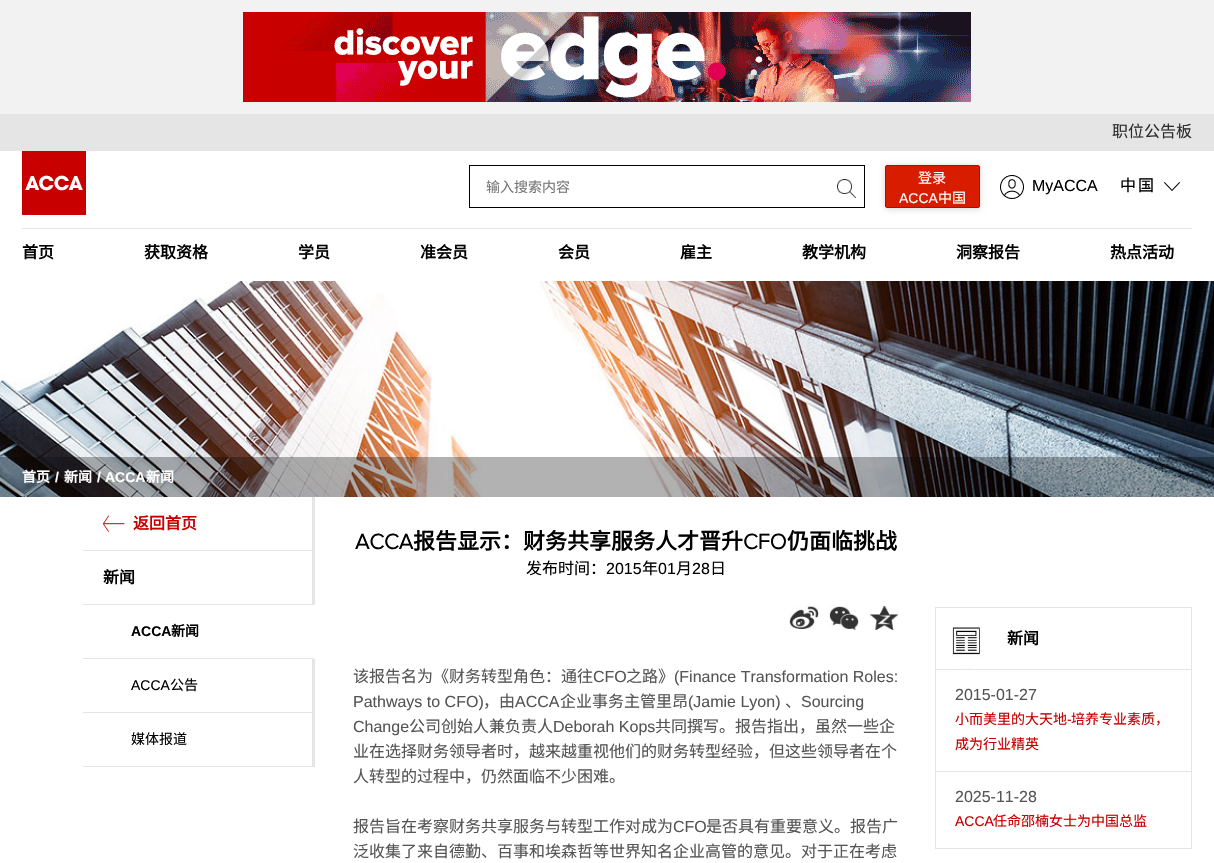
void draw(SkCanvas* canvas) {
	SkPaint paint;
	paint.setAntiAlias(true);
	auto spacedText = [&](const char* s, float x, float y, const SkFont& font, const SkPaint& ink, float letter, float word) {
		std::vector<SkGlyphID> glyphs(font.countText(s, strlen(s), SkTextEncoding::kUTF8));
		std::vector<float> xs(glyphs.size());
		font.textToGlyphs(s, strlen(s), SkTextEncoding::kUTF8, glyphs);
		font.getXPos(glyphs, xs, x);
		float extra = 0;
		for (size_t i = 0; i < glyphs.size(); i++) {
			xs[i] += extra;
			extra += letter + word * (glyphs[i] == font.unicharToGlyph(' '));
		}
		canvas->drawTextBlob(SkTextBlob::MakeFromPosHGlyphs(glyphs, xs, y, font), 0, 0, ink);
	};
	auto svgPath = [&](const char* data, bool evenOdd = false) {
		SkPath result = *SkParsePath::FromSVGString(data);
		if (evenOdd) result.setFillType(SkPathFillType::kEvenOdd);
		return result;
	};
	canvas->clear(0xffffffff);
	paint.setColor(0xfff2f2f2);
	canvas->drawRect(SkRect::MakeXYWH(0, 0, 1214, 114), paint);
	canvas->drawImageRect(SkImages::DeferredFromEncodedData(SkData::MakeFromFileName("img1.png")), SkRect::MakeXYWH(243, 12, 728, 90), SkSamplingOptions());
	paint.setColor(0xffe5e5e5);
	canvas->drawRect(SkRect::MakeXYWH(0, 114, 1214, 37), paint);
	SkFont f1(fontMgr->matchFamilyStyle("Noto Sans CJK SC", SkFontStyle::Normal()), 16);
	f1.setSubpixel(true);
	paint.setColor(0xff2d2d2d);
	canvas->drawString("职位公告板", 1112, 137, f1, paint);
	canvas->drawImageRect(SkImages::DeferredFromEncodedData(SkData::MakeFromFileName("img2.png")), SkRect::MakeXYWH(22, 151, 64, 64), SkSamplingOptions());
	paint.setStroke(true);
	paint.setStrokeWidth(1);
	paint.setColor(0xff000000);
	canvas->drawRect(SkRect::MakeXYWH(469.5, 165.5, 395, 42), paint);
	SkFont f2(fontMgr->matchFamilyStyle("Noto Sans CJK SC", SkFontStyle::Normal()), 14);
	f2.setSubpixel(true);
	paint.setStroke(false);
	paint.setColor(0xff757575);
	canvas->drawString("输入搜索内容", 486, 192, f2, paint);
	canvas->drawImageRect(SkImages::DeferredFromEncodedData(SkData::MakeFromFileName("img3.png")), SkRect::MakeXYWH(837, 179, 19, 19), SkSamplingOptions());
	paint.setColor(0x29000000);
	paint.setMaskFilter(SkMaskFilter::MakeBlur(kNormal_SkBlurStyle, 3));
	canvas->drawRoundRect(SkRect::MakeXYWH(885, 166, 95, 43), 2, 2, paint);
	paint.setMaskFilter(nullptr);
	paint.setColor(0xffd81c00);
	canvas->drawRoundRect(SkRect::MakeXYWH(885.5, 165.5, 94, 42), 1.5, 1.5, paint);
	paint.setStroke(true);
	paint.setColor(0xffc80000);
	canvas->drawRoundRect(SkRect::MakeXYWH(885.5, 165.5, 94, 42), 1.5, 1.5, paint);
	paint.setStroke(false);
	paint.setColor(0xffffffff);
	canvas->drawString("登录", 918, 183, f2, paint);
	SkFont f3(fontMgr->matchFamilyStyle("Liberation Sans", SkFontStyle::Normal()), 14);
	f3.setSubpixel(true);
	canvas->drawString("ACCA", 899, 203, f3, paint);
	canvas->drawString("中国", 938, 203, f2, paint);
	canvas->drawImageRect(SkImages::DeferredFromEncodedData(SkData::MakeFromFileName("img4.png")), SkRect::MakeXYWH(1000, 175, 24, 24), SkSamplingOptions());
	SkFont f4(fontMgr->matchFamilyStyle("Liberation Sans", SkFontStyle::Normal()), 16);
	f4.setSubpixel(true);
	paint.setColor(0xff000000);
	canvas->drawString("MyACCA", 1032, 191, f4, paint);
	canvas->drawImageRect(SkImages::DeferredFromEncodedData(SkData::MakeFromFileName("img5.png")), SkRect::MakeXYWH(1164, 182, 16, 9), SkSamplingOptions());
	spacedText("中国", 1120, 191, f1, paint, 2, 0);
	paint.setColor(0xffe5e5e5);
	canvas->drawRect(SkRect::MakeXYWH(22, 228, 1170, 1), paint);
	SkFont f5(fontMgr->matchFamilyStyle("Noto Sans CJK SC", SkFontStyle::Bold()), 16);
	f5.setSubpixel(true);
	paint.setColor(0xff000000);
	canvas->drawString("首页", 22, 258, f5, paint);
	canvas->drawString("获取资格", 144, 258, f5, paint);
	canvas->drawString("学员", 298, 258, f5, paint);
	canvas->drawString("准会员", 420, 258, f5, paint);
	canvas->drawString("会员", 558, 258, f5, paint);
	canvas->drawString("雇主", 680, 258, f5, paint);
	canvas->drawString("教学机构", 802, 258, f5, paint);
	canvas->drawString("洞察报告", 956, 258, f5, paint);
	canvas->drawString("热点活动", 1110, 258, f5, paint);
	canvas->drawImageRect(SkImages::DeferredFromEncodedData(SkData::MakeFromFileName("img6.png")), SkRect::MakeXYWH(0, 281, 1214, 216), SkSamplingOptions());
	paint.setColor(0x4d000000);
	canvas->drawRect(SkRect::MakeXYWH(0, 457, 1214, 40), paint);
	SkFont f6(fontMgr->matchFamilyStyle("Noto Sans CJK SC", SkFontStyle::Bold()), 14);
	f6.setSubpixel(true);
	paint.setColor(0xffffffff);
	canvas->drawString("首页", 22, 482, f6, paint);
	SkFont f7(fontMgr->matchFamilyStyle("Liberation Sans", SkFontStyle::Bold()), 14);
	f7.setSubpixel(true);
	canvas->drawString("/", 55, 482, f7, paint);
	canvas->drawString("新闻", 64, 482, f6, paint);
	canvas->drawString("/", 97, 482, f7, paint);
	canvas->drawString("ACCA", 105, 482, f7, paint);
	canvas->drawString("新闻", 146, 482, f6, paint);
	paint.setColor(0xffe5e5e5);
	canvas->drawRect(SkRect::MakeXYWH(312, 497, 3, 108), paint);
	canvas->drawRect(SkRect::MakeXYWH(83, 550, 232, 1), paint);
	canvas->drawImageRect(SkImages::DeferredFromEncodedData(SkData::MakeFromFileName("img7.png")), SkRect::MakeXYWH(103, 515, 22, 17), SkSamplingOptions());
	paint.setColor(0xffc80000);
	canvas->drawString("返回首页", 133, 529, f5, paint);
	paint.setColor(0xffe5e5e5);
	canvas->drawRect(SkRect::MakeXYWH(83, 604, 232, 1), paint);
	paint.setColor(0xff000000);
	canvas->drawString("新闻", 103, 583, f5, paint);
	paint.setColor(0xffe5e5e5);
	canvas->drawPath(svgPath("M315 659H83V658H312Z"), paint);
	paint.setColor(0xff000000);
	canvas->drawString("ACCA", 131, 636, f7, paint);
	canvas->drawString("新闻", 171, 636, f6, paint);
	paint.setColor(0xffe5e5e5);
	canvas->drawRect(SkRect::MakeXYWH(312, 659, 3, 108), paint);
	canvas->drawRect(SkRect::MakeXYWH(83, 712, 232, 1), paint);
	paint.setColor(0xff000000);
	canvas->drawString("ACCA", 131, 690, f3, paint);
	canvas->drawString("公告", 170, 690, f2, paint);
	paint.setColor(0xffe5e5e5);
	canvas->drawRect(SkRect::MakeXYWH(83, 766, 232, 1), paint);
	paint.setColor(0xff000000);
	canvas->drawString("媒体报道", 131, 744, f2, paint);
	SkFont f8(fontMgr->matchFamilyStyle("Proxima Nova", SkFontStyle::Bold()), 22);
	f8.setSubpixel(true);
	canvas->drawString("ACCA", 355, 549, f8, paint);
	SkFont f9(fontMgr->matchFamilyStyle("Noto Sans SC", SkFontStyle::Bold()), 22);
	f9.setSubpixel(true);
	canvas->drawString("报告显示：财务共享服务人才晋升", 413, 549, f9, paint);
	canvas->drawString("CFO", 743, 549, f8, paint);
	canvas->drawString("仍面临挑战", 787, 549, f9, paint);
	canvas->drawString("发布时间：", 526, 574, f1, paint);
	canvas->drawString("2015", 606, 574, f4, paint);
	canvas->drawString("年", 642, 574, f1, paint);
	canvas->drawString("01", 658, 574, f4, paint);
	canvas->drawString("月", 676, 574, f1, paint);
	canvas->drawString("28", 692, 574, f4, paint);
	canvas->drawString("日", 710, 574, f1, paint);
	canvas->drawImageRect(SkImages::DeferredFromEncodedData(SkData::MakeFromFileName("img8.png")), SkRect::MakeXYWH(789, 605, 30, 24), SkSamplingOptions());
	canvas->drawImageRect(SkImages::DeferredFromEncodedData(SkData::MakeFromFileName("img9.png")), SkRect::MakeXYWH(829, 605, 30, 25), SkSamplingOptions());
	canvas->drawImageRect(SkImages::DeferredFromEncodedData(SkData::MakeFromFileName("img10.png")), SkRect::MakeXYWH(869, 605, 30, 25), SkSamplingOptions());
	paint.setColor(0xff555555);
	canvas->drawString("该报告名为《财务转型角色：通往", 353, 682, f1, paint);
	canvas->drawString("CFO", 593, 682, f4, paint);
	canvas->drawString("之路》", 626, 682, f1, paint);
	canvas->drawString("(Finance Transformation Roles:", 674, 682, f4, paint);
	canvas->drawString("Pathways to CFO)", 353, 707, f4, paint);
	canvas->drawString("，由", 483, 707, f1, paint);
	canvas->drawString("ACCA", 515, 707, f4, paint);
	canvas->drawString("企业事务主管里昂", 560, 707, f1, paint);
	canvas->drawString("(Jamie Lyon)", 688, 707, f4, paint);
	canvas->drawString("、", 785, 707, f1, paint);
	canvas->drawString("Sourcing", 801, 707, f4, paint);
	canvas->drawString("Change", 353, 732, f4, paint);
	canvas->drawString("公司创始人兼负责人", 409, 732, f1, paint);
	canvas->drawString("Deborah Kops", 553, 732, f4, paint);
	canvas->drawString("共同撰写。报告指出，虽然一些企", 655, 732, f1, paint);
	canvas->drawString("业在选择财务领导者时，越来越重视他们的财务转型经验，但这些领导者在个", 353, 757, f1, paint);
	canvas->drawString("人转型的过程中，仍然面临不少困难。", 353, 782, f1, paint);
	canvas->drawString("报告旨在考察财务共享服务与转型工作对成为", 353, 832, f1, paint);
	canvas->drawString("CFO", 673, 832, f4, paint);
	canvas->drawString("是否具有重要意义。报告广", 706, 832, f1, paint);
	canvas->drawString("泛收集了来自德勤、百事和埃森哲等世界知名企业高管的意见。对于正在考虑", 353, 857, f1, paint);
	paint.setStroke(true);
	paint.setColor(0xffe5e5e5);
	canvas->drawRect(SkRect::MakeXYWH(935.5, 607.5, 256, 241), paint);
	canvas->drawImageRect(SkImages::DeferredFromEncodedData(SkData::MakeFromFileName("img11.png")), SkRect::MakeXYWH(952, 627, 30, 42), SkSamplingOptions());
	paint.setStroke(false);
	canvas->drawRect(SkRect::MakeXYWH(936, 669, 255, 1), paint);
	paint.setColor(0xff000000);
	canvas->drawString("新闻", 1007, 644, f5, paint);
	paint.setColor(0xff555555);
	canvas->drawString("2015-01-27", 955, 700, f4, paint);
	paint.setColor(0xffc80000);
	canvas->drawString("小而美里的大天地", 955, 724, f2, paint);
	canvas->drawString("-", 1067, 724, f3, paint);
	canvas->drawString("培养专业素质，", 1071, 724, f2, paint);
	canvas->drawString("成为行业精英", 955, 749, f2, paint);
	paint.setColor(0xffe5e5e5);
	canvas->drawRect(SkRect::MakeXYWH(936, 771, 255, 1), paint);
	paint.setColor(0xff555555);
	canvas->drawString("2025-11-28", 955, 802, f4, paint);
	paint.setColor(0xffc80000);
	canvas->drawString("ACCA", 955, 826, f3, paint);
	canvas->drawString("任命邵楠女士为中国总监", 993, 826, f2, paint);
}
